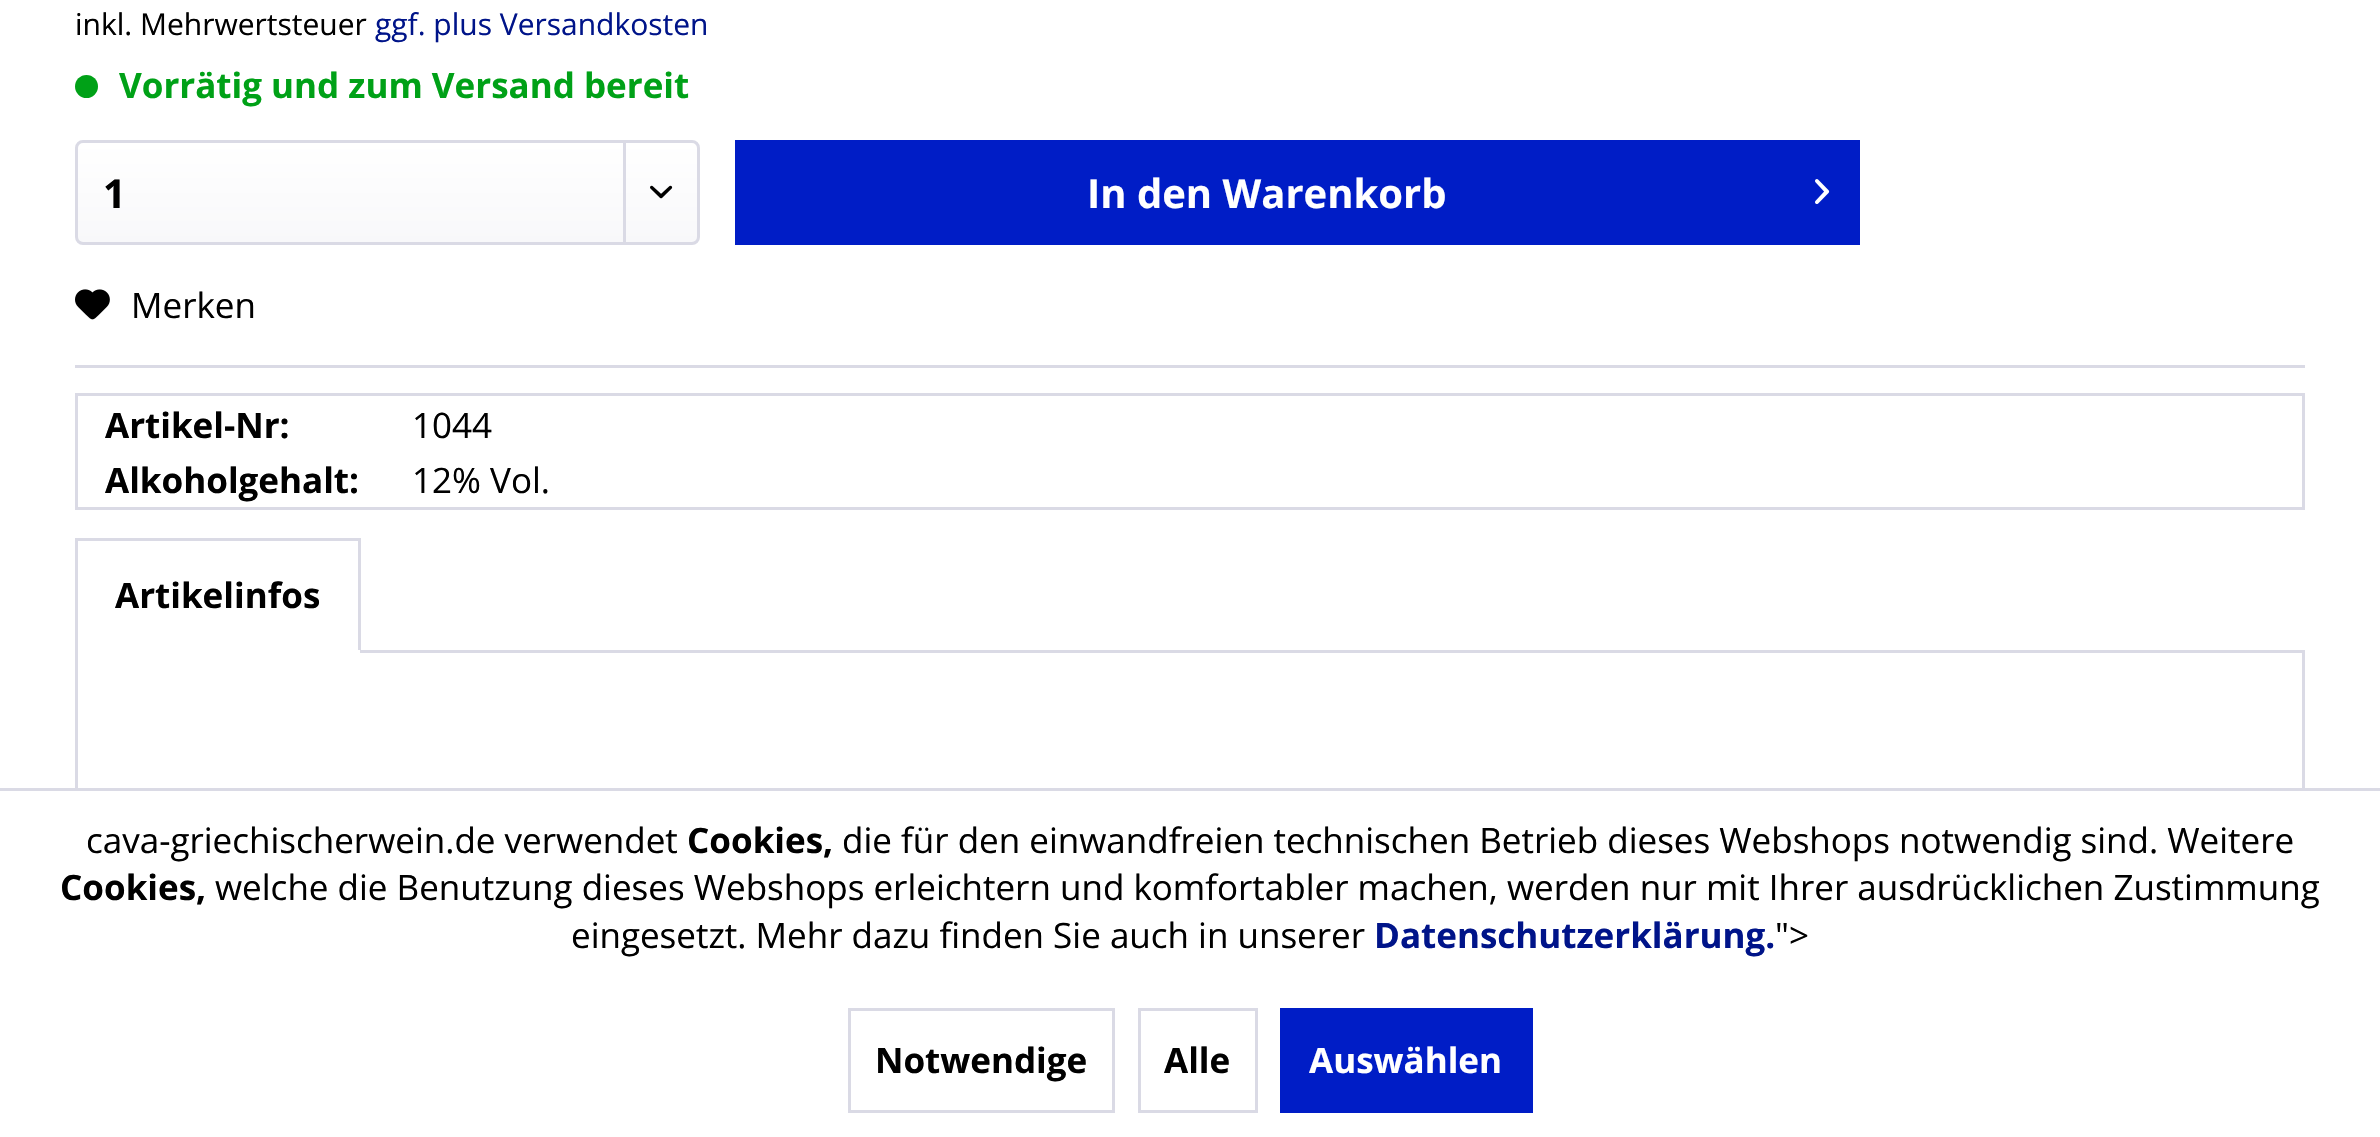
void draw(SkCanvas* canvas) {
	SkPaint paint;
	paint.setAntiAlias(true);
	canvas->clear(0xffffffff);
	SkFont f1(fontMgr->matchFamilyStyle("Open Sans", SkFontStyle::Normal()), 30);
	f1.setSubpixel(true);
	paint.setColor(0xff000000);
	canvas->drawString("inkl. Mehrwertsteuer", 75, 35, f1, paint);
	paint.setColor(0xff001489);
	canvas->drawString("ggf. plus Versandkosten", 375, 35, f1, paint);
	paint.setColor(0xff00a117);
	canvas->drawCircle(86.5, 86.5, 11.5, paint);
	SkFont f2(fontMgr->matchFamilyStyle("Open Sans", SkFontStyle::Bold()), 35);
	f2.setSubpixel(true);
	canvas->drawString("Vorrätig und zum Versand bereit", 119, 98, f2, paint);
	{
		const SkColor colors[] = {0xffffffff, 0xfff8f8fa};
		const float stops[] = {0, 1};
		const SkPoint ends[] = {{388, 142}, {388, 243}};
		paint.setShader(SkGradientShader::MakeLinear(ends, colors, stops, 2, SkTileMode::kClamp));
		paint.setAlpha(255);
	}
	canvas->drawRoundRect(SkRect::MakeXYWH(78, 143, 620, 100), 5, 5, paint);
	paint.setStroke(true);
	paint.setStrokeWidth(3);
	paint.setShader(nullptr);
	paint.setColor(0xffdadae5);
	canvas->drawRoundRect(SkRect::MakeXYWH(76.5, 141.5, 622, 102), 6.5, 6.5, paint);
	SkFont f3(fontMgr->matchFamilyStyle("Open Sans", SkFontStyle::Bold()), 40);
	f3.setSubpixel(true);
	paint.setStroke(false);
	paint.setColor(0xff000000);
	canvas->drawString("1", 103, 208, f3, paint);
	paint.setColor(0xffdadae5);
	canvas->drawRect(SkRect::MakeXYWH(623, 143, 3, 100), paint);
	canvas->drawImageRect(SkImages::DeferredFromEncodedData(SkData::MakeFromFileName("img1.png")), SkRect::MakeXYWH(650, 185, 23, 14), SkSamplingOptions());
	paint.setColor(0xff001dc6);
	canvas->drawRect(SkRect::MakeXYWH(735, 140, 1125, 105), paint);
	paint.setColor(0xffffffff);
	canvas->drawString("In den Warenkorb", 1087, 208, f3, paint);
	canvas->drawImageRect(SkImages::DeferredFromEncodedData(SkData::MakeFromFileName("img2.png")), SkRect::MakeXYWH(1815, 179, 15, 25), SkSamplingOptions());
	paint.setColor(0xffdadae5);
	canvas->drawRect(SkRect::MakeXYWH(75, 365, 2230, 3), paint);
	canvas->drawImageRect(SkImages::DeferredFromEncodedData(SkData::MakeFromFileName("img3.png")), SkRect::MakeXYWH(75, 289, 35, 31), SkSamplingOptions());
	SkFont f4(fontMgr->matchFamilyStyle("Open Sans", SkFontStyle::Normal()), 35);
	f4.setSubpixel(true);
	paint.setColor(0xff000000);
	canvas->drawString("Merken", 131, 318, f4, paint);
	paint.setStroke(true);
	paint.setColor(0xffdadae5);
	canvas->drawRect(SkRect::MakeXYWH(76.5, 394.5, 2227, 114), paint);
	paint.setStroke(false);
	paint.setColor(0xff000000);
	canvas->drawString("Artikel-Nr:", 105, 438, f2, paint);
	canvas->drawString("1044", 412, 438, f4, paint);
	canvas->drawString("Alkoholgehalt:", 105, 493, f2, paint);
	canvas->drawString("12% Vol.", 412, 493, f4, paint);
	paint.setColor(0xffdadae5);
	canvas->drawRect(SkRect::MakeXYWH(75, 538, 285, 3), paint);
	paint.setStroke(true);
	canvas->drawRect(SkRect::MakeXYWH(76.5, 651.5, 2227, 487), paint);
	paint.setStroke(false);
	canvas->drawRect(SkRect::MakeXYWH(358, 538, 3, 115), paint);
	paint.setColor(0xffffffff);
	canvas->drawRect(SkRect::MakeXYWH(75, 650, 285, 3), paint);
	paint.setColor(0xffdadae5);
	canvas->drawRect(SkRect::MakeXYWH(75, 538, 3, 115), paint);
	paint.setColor(0xff000000);
	canvas->drawString("Artikelinfos", 115, 608, f2, paint);
	paint.setColor(0xffffffff);
	canvas->drawRect(SkRect::MakeXYWH(75, 791, 2230, 346), paint);
	paint.setColor(0xffdadae5);
	canvas->drawRect(SkRect::MakeXYWH(0, 788, 2380, 3), paint);
	paint.setColor(0xff000000);
	canvas->drawString("cava-griechischerwein.de verwendet", 86, 853, f4, paint);
	canvas->drawString("Cookies,", 687, 853, f2, paint);
	canvas->drawString("die für den einwandfreien technischen Betrieb dieses Webshops notwendig sind. Weitere", 842, 853, f4, paint);
	canvas->drawString("Cookies,", 60, 900, f2, paint);
	canvas->drawString("welche die Benutzung dieses Webshops erleichtern und komfortabler machen, werden nur mit Ihrer ausdrücklichen Zustimmung", 215, 900, f4, paint);
	canvas->drawString("eingesetzt. Mehr dazu finden Sie auch in unserer", 571, 948, f4, paint);
	paint.setColor(0xff001489);
	canvas->drawString("Datenschutzerklärung.", 1374, 948, f2, paint);
	paint.setColor(0xff000000);
	canvas->drawString("\">", 1775, 948, f4, paint);
	paint.setStroke(true);
	paint.setColor(0xffdadae5);
	canvas->drawRect(SkRect::MakeXYWH(849.5, 1009.5, 264, 102), paint);
	paint.setStroke(false);
	paint.setColor(0xff000000);
	canvas->drawString("Notwendige", 875, 1073, f2, paint);
	paint.setStroke(true);
	paint.setColor(0xffdadae5);
	canvas->drawRect(SkRect::MakeXYWH(1139.5, 1009.5, 117, 102), paint);
	paint.setStroke(false);
	paint.setColor(0xff000000);
	canvas->drawString("Alle", 1164, 1073, f2, paint);
	paint.setColor(0xff001dc6);
	canvas->drawRect(SkRect::MakeXYWH(1280, 1008, 253, 105), paint);
	paint.setColor(0xffffffff);
	canvas->drawString("Auswählen", 1309, 1073, f2, paint);
}
